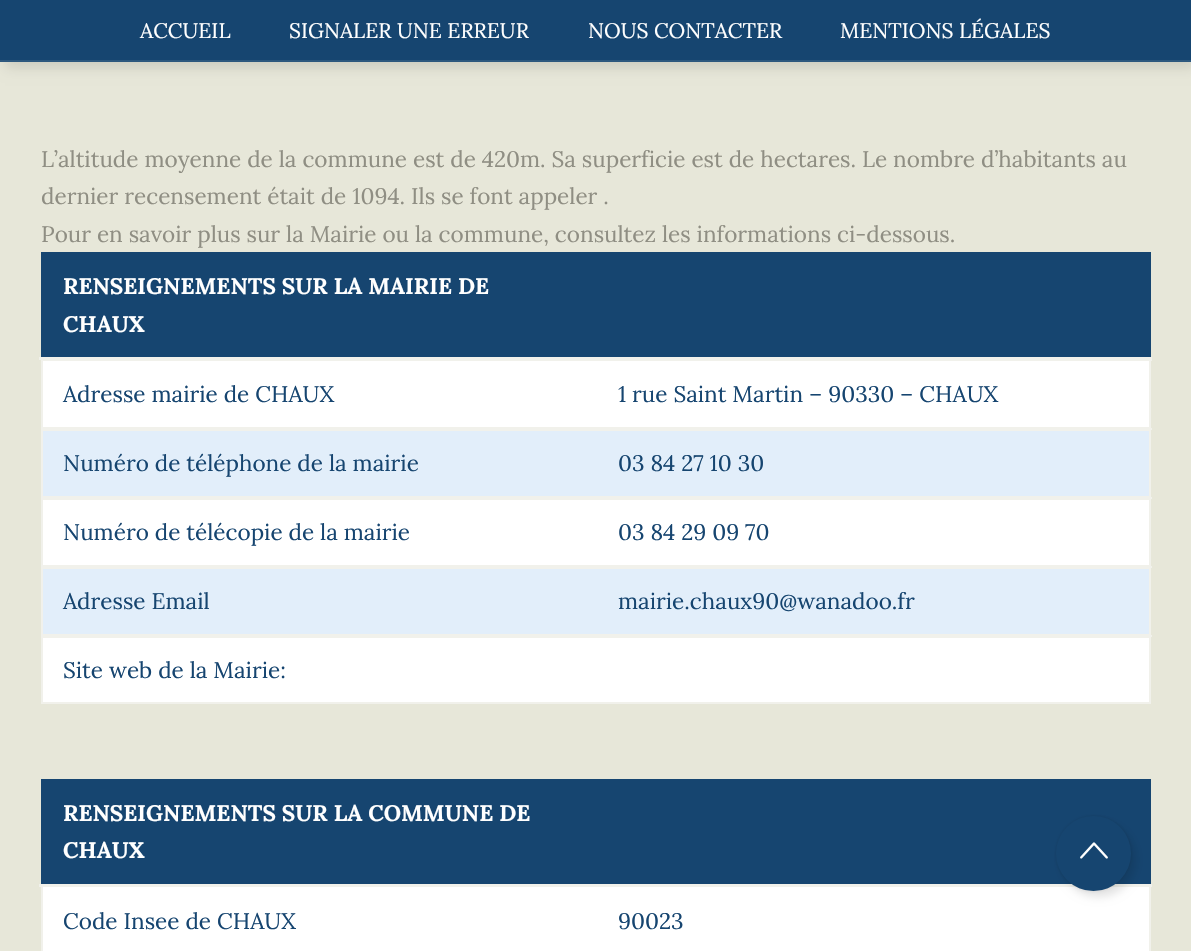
void draw(SkCanvas* canvas) {
	SkPaint paint;
	paint.setAntiAlias(true);
	canvas->clear(0xffe7e7d9);
	paint.setColor(0x1c000000);
	paint.setMaskFilter(SkMaskFilter::MakeBlur(kNormal_SkBlurStyle, 6));
	canvas->drawRect(SkRect::MakeXYWH(5, 6, 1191, 62), paint);
	paint.setMaskFilter(nullptr);
	paint.setColor(0xff164570);
	canvas->drawRect(SkRect::MakeXYWH(0, 0, 1191, 60), paint);
	paint.setColor(0xff2d587e);
	canvas->drawRect(SkRect::MakeXYWH(0, 60, 1191, 2), paint);
	SkFont f1(fontMgr->matchFamilyStyle("Lora", SkFontStyle::Normal()), 21);
	f1.setSubpixel(true);
	paint.setColor(0xffffffff);
	canvas->drawString("ACCUEIL", 140, 38, f1, paint);
	canvas->drawString("SIGNALER UNE ERREUR", 289, 38, f1, paint);
	canvas->drawString("NOUS CONTACTER", 588, 38, f1, paint);
	canvas->drawString("MENTIONS LÉGALES", 840, 38, f1, paint);
	SkFont f2(fontMgr->matchFamilyStyle("Lora", SkFontStyle::Normal()), 22.5);
	f2.setSubpixel(true);
	paint.setColor(0xff8f8e83);
	canvas->drawString("L’altitude moyenne de la commune est de 420m. Sa superficie est de hectares. Le nombre d’habitants au", 41, 167, f2, paint);
	canvas->drawString("dernier recensement était de 1094. Ils se font appeler .", 41, 204, f2, paint);
	canvas->drawString("Pour en savoir plus sur la Mairie ou la commune, consultez les informations ci-dessous.", 41, 242, f2, paint);
	paint.setColor(0xff164570);
	canvas->drawRect(SkRect::MakeXYWH(41, 252, 1110, 105), paint);
	SkFont f3(fontMgr->matchFamilyStyle("Lora", SkFontStyle::Bold()), 22.5);
	f3.setSubpixel(true);
	paint.setColor(0xffffffff);
	canvas->drawString("RENSEIGNEMENTS SUR LA MAIRIE DE", 63, 294, f3, paint);
	canvas->drawString("CHAUX", 63, 332, f3, paint);
	canvas->drawRect(SkRect::MakeXYWH(42, 360, 1108, 68), paint);
	paint.setStroke(true);
	paint.setStrokeWidth(2);
	paint.setColor(0xfff1f1eb);
	canvas->drawRect(SkRect::MakeXYWH(42, 360, 1108, 68), paint);
	paint.setStroke(false);
	canvas->drawRect(SkRect::MakeXYWH(39, 357, 1113, 3), paint);
	paint.setColor(0xff164570);
	canvas->drawString("Adresse mairie de CHAUX", 63, 402, f2, paint);
	paint.setColor(0xfff1f1eb);
	canvas->drawRect(SkRect::MakeXYWH(1151, 360, 1, 1), paint);
	paint.setColor(0xff164570);
	canvas->drawString("1 rue Saint Martin – 90330 – CHAUX", 618, 402, f2, paint);
	paint.setColor(0xffe2eefa);
	canvas->drawRect(SkRect::MakeXYWH(42, 430, 1108, 67), paint);
	paint.setStroke(true);
	paint.setColor(0xfff1f1eb);
	canvas->drawRect(SkRect::MakeXYWH(42, 430, 1108, 67), paint);
	paint.setStroke(false);
	paint.setColor(0xff164570);
	canvas->drawString("Numéro de téléphone de la mairie", 63, 471, f2, paint);
	paint.setColor(0xfff1f1eb);
	canvas->drawRect(SkRect::MakeXYWH(1151, 428, 1, 2), paint);
	paint.setColor(0xff164570);
	canvas->drawString("03 84 27 10 30", 618, 471, f2, paint);
	paint.setColor(0xffffffff);
	canvas->drawRect(SkRect::MakeXYWH(42, 499, 1108, 67), paint);
	paint.setStroke(true);
	paint.setColor(0xfff1f1eb);
	canvas->drawRect(SkRect::MakeXYWH(42, 499, 1108, 67), paint);
	paint.setStroke(false);
	paint.setColor(0xff164570);
	canvas->drawString("Numéro de télécopie de la mairie", 63, 540, f2, paint);
	paint.setColor(0xfff1f1eb);
	canvas->drawRect(SkRect::MakeXYWH(1151, 497, 1, 2), paint);
	paint.setColor(0xff164570);
	canvas->drawString("03 84 29 09 70", 618, 540, f2, paint);
	paint.setColor(0xffe2eefa);
	canvas->drawRect(SkRect::MakeXYWH(42, 568, 1108, 67), paint);
	paint.setStroke(true);
	paint.setColor(0xfff1f1eb);
	canvas->drawRect(SkRect::MakeXYWH(42, 568, 1108, 67), paint);
	paint.setStroke(false);
	paint.setColor(0xff164570);
	canvas->drawString("Adresse Email", 63, 609, f2, paint);
	paint.setColor(0xfff1f1eb);
	canvas->drawRect(SkRect::MakeXYWH(1151, 566, 1, 2), paint);
	paint.setColor(0xff164570);
	canvas->drawString("mairie.chaux90@wanadoo.fr", 618, 609, f2, paint);
	paint.setColor(0xffffffff);
	canvas->drawRect(SkRect::MakeXYWH(42, 637, 1108, 66), paint);
	paint.setStroke(true);
	paint.setColor(0xfff1f1eb);
	canvas->drawRect(SkRect::MakeXYWH(42, 637, 1108, 66), paint);
	paint.setStroke(false);
	canvas->drawRect(SkRect::MakeXYWH(1151, 635, 1, 2), paint);
	paint.setColor(0xff164570);
	canvas->drawString("Site web de la Mairie:", 63, 678, f2, paint);
	canvas->drawRect(SkRect::MakeXYWH(41, 779, 1110, 105), paint);
	paint.setColor(0xffffffff);
	canvas->drawString("RENSEIGNEMENTS SUR LA COMMUNE DE", 63, 821, f3, paint);
	canvas->drawString("CHAUX", 63, 858, f3, paint);
	canvas->drawRect(SkRect::MakeXYWH(42, 886, 1108, 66), paint);
	paint.setStroke(true);
	paint.setColor(0xfff1f1eb);
	canvas->drawRect(SkRect::MakeXYWH(42, 886, 1108, 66), paint);
	paint.setStroke(false);
	canvas->drawRect(SkRect::MakeXYWH(39, 884, 1113, 3), paint);
	paint.setColor(0xff164570);
	canvas->drawString("Code Insee de CHAUX", 63, 929, f2, paint);
	canvas->drawString("90023", 618, 929, f2, paint);
	paint.setColor(0x1c000000);
	paint.setMaskFilter(SkMaskFilter::MakeBlur(kNormal_SkBlurStyle, 4));
	canvas->drawRoundRect(SkRect::MakeXYWH(1061, 822, 75, 75), 37.5, 37.5, paint);
	paint.setMaskFilter(nullptr);
	paint.setMaskFilter(SkMaskFilter::MakeBlur(kNormal_SkBlurStyle, 1.5));
	canvas->drawRoundRect(SkRect::MakeXYWH(1056, 816, 75, 75), 37.5, 37.5, paint);
	paint.setMaskFilter(nullptr);
	paint.setColor(0xff164570);
	canvas->drawCircle(1093.5, 853.5, 37.5, paint);
	canvas->drawImageRect(SkImages::DeferredFromEncodedData(SkData::MakeFromFileName("img1.png")), SkRect::MakeXYWH(1080, 842, 28, 17), SkSamplingOptions());
}
